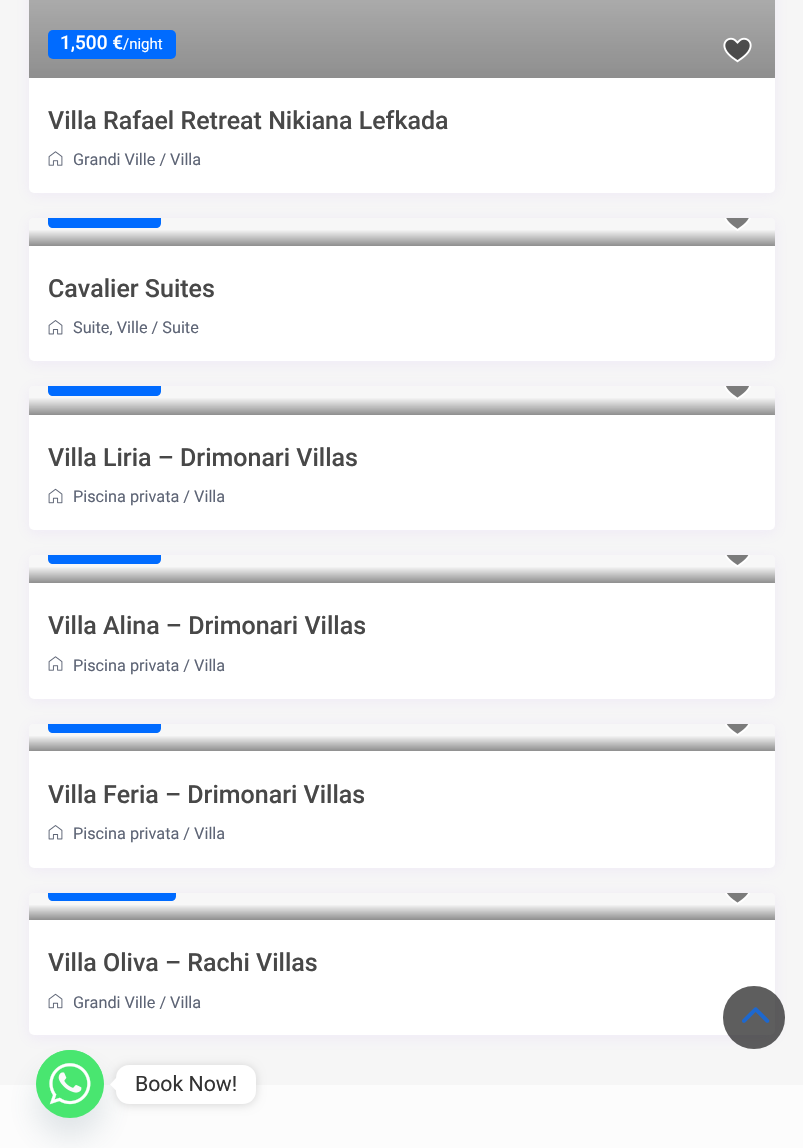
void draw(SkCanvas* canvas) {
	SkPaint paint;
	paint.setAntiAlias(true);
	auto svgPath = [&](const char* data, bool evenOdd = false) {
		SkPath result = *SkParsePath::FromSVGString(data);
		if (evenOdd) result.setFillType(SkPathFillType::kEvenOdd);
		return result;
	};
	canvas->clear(0xfffcfcfc);
	paint.setColor(0xfff6f6f6);
	canvas->drawRect(SkRect::MakeXYWH(0, 0, 803, 1085), paint);
	paint.setColor(0x1ab57ffa);
	paint.setMaskFilter(SkMaskFilter::MakeBlur(kNormal_SkBlurStyle, 7));
	canvas->drawRoundRect(SkRect::MakeXYWH(29, -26, 746, 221), 5, 5, paint);
	paint.setMaskFilter(nullptr);
	paint.setColor(0xffffffff);
	canvas->drawRoundRect(SkRect::MakeXYWH(29, -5, 746, 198), 5, 5, paint);
	paint.setColor(0xfff7f7f7);
	canvas->drawPath(svgPath("M34-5H770C773-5 775-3 775 0V74C775 76 773 78 771 78H33C31 78 29 76 29 74V0C29-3 31-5 34-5Z"), paint);
	{
		const SkColor colors[] = {0x00484848, 0x99484848};
		const float stops[] = {0.03, 1};
		const SkPoint ends[] = {{402, -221}, {402, 78}};
		paint.setShader(SkGradientShader::MakeLinear(ends, colors, stops, 2, SkTileMode::kClamp));
		paint.setAlpha(255);
	}
	canvas->drawRect(SkRect::MakeXYWH(29, 0, 746, 78), paint);
	paint.setShader(nullptr);
	paint.setColor(0xff006bff);
	canvas->drawRoundRect(SkRect::MakeXYWH(48, 30, 128, 29), 5, 5, paint);
	SkFont f1(fontMgr->matchFamilyStyle("Roboto", SkFontStyle(500, SkFontStyle::kNormal_Width, SkFontStyle::kUpright_Slant)), 19);
	f1.setSubpixel(true);
	paint.setColor(0xffffffff);
	canvas->drawString("1,500 €", 60, 49, f1, paint);
	SkFont f2(fontMgr->matchFamilyStyle("Roboto", SkFontStyle::Normal()), 15);
	f2.setSubpixel(true);
	canvas->drawString("/night", 123, 49, f2, paint);
	canvas->drawImageRect(SkImages::DeferredFromEncodedData(SkData::MakeFromFileName("img1.png")), SkRect::MakeXYWH(723, 37, 29, 26), SkSamplingOptions());
	SkFont f3(fontMgr->matchFamilyStyle("Roboto", SkFontStyle(500, SkFontStyle::kNormal_Width, SkFontStyle::kUpright_Slant)), 25);
	f3.setSubpixel(true);
	paint.setColor(0xff484848);
	canvas->drawString("Villa Rafael Retreat Nikiana Lefkada", 48, 129, f3, paint);
	canvas->drawImageRect(SkImages::DeferredFromEncodedData(SkData::MakeFromFileName("img2.png")), SkRect::MakeXYWH(48, 151, 15, 15), SkSamplingOptions());
	SkFont f4(fontMgr->matchFamilyStyle("Roboto", SkFontStyle::Normal()), 16.25);
	f4.setSubpixel(true);
	paint.setColor(0xff5d6475);
	canvas->drawString("Grandi Ville / Villa", 73, 165, f4, paint);
	paint.setColor(0x1ab57ffa);
	paint.setMaskFilter(SkMaskFilter::MakeBlur(kNormal_SkBlurStyle, 7));
	canvas->drawRoundRect(SkRect::MakeXYWH(29, 220, 746, 144), 5, 5, paint);
	paint.setMaskFilter(nullptr);
	paint.setColor(0xffffffff);
	canvas->drawRoundRect(SkRect::MakeXYWH(29, 218, 746, 143), 5, 5, paint);
	paint.setColor(0xfff7f7f7);
	canvas->drawPath(svgPath("M34 218H770C773 218 775 220 775 223V242C775 244 773 246 771 246H33C31 246 29 244 29 242V223C29 220 31 218 34 218Z"), paint);
	paint.setColor(0xff006bff);
	canvas->drawPath(svgPath("M48 218H161V223C161 226 159 228 156 228H53C50 228 48 226 48 223Z"), paint);
	{
		const SkColor colors[] = {0x00484848, 0x99484848};
		const float stops[] = {0.03, 1};
		const SkPoint ends[] = {{402, 229}, {402, 246}};
		paint.setShader(SkGradientShader::MakeLinear(ends, colors, stops, 2, SkTileMode::kClamp));
		paint.setAlpha(255);
	}
	canvas->drawRect(SkRect::MakeXYWH(29, 230, 746, 16), paint);
	canvas->drawImageRect(SkImages::DeferredFromEncodedData(SkData::MakeFromFileName("img3.png")), SkRect::MakeXYWH(724, 218, 27, 13), SkSamplingOptions());
	paint.setShader(nullptr);
	paint.setColor(0xff484848);
	canvas->drawString("Cavalier Suites", 48, 297, f3, paint);
	canvas->drawImageRect(SkImages::DeferredFromEncodedData(SkData::MakeFromFileName("img4.png")), SkRect::MakeXYWH(48, 320, 15, 15), SkSamplingOptions());
	paint.setColor(0xff5d6475);
	canvas->drawString("Suite, Ville / Suite", 73, 333, f4, paint);
	paint.setColor(0x1ab57ffa);
	paint.setMaskFilter(SkMaskFilter::MakeBlur(kNormal_SkBlurStyle, 7));
	canvas->drawRoundRect(SkRect::MakeXYWH(29, 389, 746, 144), 5, 5, paint);
	paint.setMaskFilter(nullptr);
	paint.setColor(0xffffffff);
	canvas->drawRoundRect(SkRect::MakeXYWH(29, 386, 746, 144), 5, 5, paint);
	paint.setColor(0xfff7f7f7);
	canvas->drawPath(svgPath("M34 386H770C773 386 775 388 775 391V411C775 413 773 415 771 415H33C31 415 29 413 29 411V391C29 388 31 386 34 386Z"), paint);
	paint.setColor(0xff006bff);
	canvas->drawPath(svgPath("M48 386H161V391C161 394 159 396 156 396H53C50 396 48 394 48 391Z"), paint);
	{
		const SkColor colors[] = {0x00484848, 0x99484848};
		const float stops[] = {0.03, 1};
		const SkPoint ends[] = {{402, 397}, {402, 415}};
		paint.setShader(SkGradientShader::MakeLinear(ends, colors, stops, 2, SkTileMode::kClamp));
		paint.setAlpha(255);
	}
	canvas->drawRect(SkRect::MakeXYWH(29, 398, 746, 17), paint);
	canvas->drawImageRect(SkImages::DeferredFromEncodedData(SkData::MakeFromFileName("img5.png")), SkRect::MakeXYWH(724, 386, 27, 14), SkSamplingOptions());
	paint.setShader(nullptr);
	paint.setColor(0xff484848);
	canvas->drawString("Villa Liria – Drimonari Villas", 48, 466, f3, paint);
	canvas->drawImageRect(SkImages::DeferredFromEncodedData(SkData::MakeFromFileName("img6.png")), SkRect::MakeXYWH(48, 488, 15, 16), SkSamplingOptions());
	paint.setColor(0xff5d6475);
	canvas->drawString("Piscina privata / Villa", 73, 502, f4, paint);
	paint.setColor(0x1ab57ffa);
	paint.setMaskFilter(SkMaskFilter::MakeBlur(kNormal_SkBlurStyle, 7));
	canvas->drawRoundRect(SkRect::MakeXYWH(29, 558, 746, 143), 5, 5, paint);
	paint.setMaskFilter(nullptr);
	paint.setColor(0xffffffff);
	canvas->drawRoundRect(SkRect::MakeXYWH(29, 555, 746, 144), 5, 5, paint);
	paint.setColor(0xfff7f7f7);
	canvas->drawPath(svgPath("M34 555H770C773 555 775 557 775 560V579C775 581 773 583 771 583H33C31 583 29 581 29 579V560C29 557 31 555 34 555Z"), paint);
	paint.setColor(0xff006bff);
	canvas->drawPath(svgPath("M48 555H161V559C161 562 159 564 156 564H53C50 564 48 562 48 559Z"), paint);
	canvas->drawImageRect(SkImages::DeferredFromEncodedData(SkData::MakeFromFileName("img7.png")), SkRect::MakeXYWH(725, 555, 25, 12), SkSamplingOptions());
	{
		const SkColor colors[] = {0x00484848, 0x99484848};
		const float stops[] = {0.03, 1};
		const SkPoint ends[] = {{402, 566}, {402, 583}};
		paint.setShader(SkGradientShader::MakeLinear(ends, colors, stops, 2, SkTileMode::kClamp));
		paint.setAlpha(255);
	}
	canvas->drawRect(SkRect::MakeXYWH(29, 567, 746, 16), paint);
	paint.setShader(nullptr);
	paint.setColor(0xff484848);
	canvas->drawString("Villa Alina – Drimonari Villas", 48, 634, f3, paint);
	canvas->drawImageRect(SkImages::DeferredFromEncodedData(SkData::MakeFromFileName("img2.png")), SkRect::MakeXYWH(48, 656, 15, 15), SkSamplingOptions());
	paint.setColor(0xff5d6475);
	canvas->drawString("Piscina privata / Villa", 73, 671, f4, paint);
	paint.setColor(0x1ab57ffa);
	paint.setMaskFilter(SkMaskFilter::MakeBlur(kNormal_SkBlurStyle, 7));
	canvas->drawRoundRect(SkRect::MakeXYWH(29, 726, 746, 144), 5, 5, paint);
	paint.setMaskFilter(nullptr);
	paint.setColor(0xffffffff);
	canvas->drawRoundRect(SkRect::MakeXYWH(29, 724, 746, 144), 5, 5, paint);
	paint.setColor(0xfff7f7f7);
	canvas->drawPath(svgPath("M34 724H770C773 724 775 726 775 729V747C775 749 773 751 771 751H33C31 751 29 749 29 747V729C29 726 31 724 34 724Z"), paint);
	paint.setColor(0xff006bff);
	canvas->drawPath(svgPath("M48 724H161V728C161 731 159 733 156 733H53C50 733 48 731 48 728Z"), paint);
	canvas->drawImageRect(SkImages::DeferredFromEncodedData(SkData::MakeFromFileName("img8.png")), SkRect::MakeXYWH(725, 724, 25, 12), SkSamplingOptions());
	{
		const SkColor colors[] = {0x00484848, 0x99484848};
		const float stops[] = {0.03, 1};
		const SkPoint ends[] = {{402, 735}, {402, 751}};
		paint.setShader(SkGradientShader::MakeLinear(ends, colors, stops, 2, SkTileMode::kClamp));
		paint.setAlpha(255);
	}
	canvas->drawRect(SkRect::MakeXYWH(29, 736, 746, 15), paint);
	paint.setShader(nullptr);
	paint.setColor(0xff484848);
	canvas->drawString("Villa Feria – Drimonari Villas", 48, 803, f3, paint);
	canvas->drawImageRect(SkImages::DeferredFromEncodedData(SkData::MakeFromFileName("img4.png")), SkRect::MakeXYWH(48, 825, 15, 15), SkSamplingOptions());
	paint.setColor(0xff5d6475);
	canvas->drawString("Piscina privata / Villa", 73, 839, f4, paint);
	paint.setColor(0x1ab57ffa);
	paint.setMaskFilter(SkMaskFilter::MakeBlur(kNormal_SkBlurStyle, 7));
	canvas->drawRoundRect(SkRect::MakeXYWH(29, 895, 746, 143), 5, 5, paint);
	paint.setMaskFilter(nullptr);
	paint.setColor(0xffffffff);
	canvas->drawRoundRect(SkRect::MakeXYWH(29, 893, 746, 142), 5, 5, paint);
	paint.setColor(0xfff7f7f7);
	canvas->drawPath(svgPath("M34 893H770C773 893 775 895 775 898V916C775 918 773 920 771 920H33C31 920 29 918 29 916V898C29 895 31 893 34 893Z"), paint);
	paint.setColor(0xff006bff);
	canvas->drawPath(svgPath("M48 893H176V896C176 899 174 901 171 901H53C50 901 48 899 48 896Z"), paint);
	canvas->drawImageRect(SkImages::DeferredFromEncodedData(SkData::MakeFromFileName("img9.png")), SkRect::MakeXYWH(725, 893, 25, 12), SkSamplingOptions());
	{
		const SkColor colors[] = {0x00484848, 0x99484848};
		const float stops[] = {0.03, 1};
		const SkPoint ends[] = {{402, 904}, {402, 920}};
		paint.setShader(SkGradientShader::MakeLinear(ends, colors, stops, 2, SkTileMode::kClamp));
		paint.setAlpha(255);
	}
	canvas->drawRect(SkRect::MakeXYWH(29, 905, 746, 15), paint);
	paint.setShader(nullptr);
	paint.setColor(0xff484848);
	canvas->drawString("Villa Oliva – Rachi Villas", 48, 971, f3, paint);
	canvas->drawImageRect(SkImages::DeferredFromEncodedData(SkData::MakeFromFileName("img6.png")), SkRect::MakeXYWH(48, 993, 15, 16), SkSamplingOptions());
	paint.setColor(0xff5d6475);
	canvas->drawString("Grandi Ville / Villa", 73, 1008, f4, paint);
	paint.setColor(0xb31a1a1a);
	canvas->drawRoundRect(SkRect::MakeXYWH(723, 986, 62, 63), 31, 31, paint);
	canvas->drawImageRect(SkImages::DeferredFromEncodedData(SkData::MakeFromFileName("img10.png")), SkRect::MakeXYWH(742, 1007, 28, 16), SkSamplingOptions());
	paint.setColor(0x2949687e);
	paint.setMaskFilter(SkMaskFilter::MakeBlur(kNormal_SkBlurStyle, 15));
	canvas->drawRoundRect(SkRect::MakeXYWH(36, 1070, 68, 68), 34, 34, paint);
	paint.setMaskFilter(nullptr);
	paint.setColor(0xff49e670);
	canvas->drawCircle(70, 1084, 34, paint);
	canvas->drawImageRect(SkImages::DeferredFromEncodedData(SkData::MakeFromFileName("img11.png")), SkRect::MakeXYWH(36, 1050, 68, 55), SkSamplingOptions());
	paint.setColor(0x26000000);
	paint.setMaskFilter(SkMaskFilter::MakeBlur(kNormal_SkBlurStyle, 5));
	canvas->drawRoundRect(SkRect::MakeXYWH(116, 1066, 140, 39), 13, 13, paint);
	paint.setMaskFilter(nullptr);
	paint.setColor(0xffffffff);
	canvas->drawRoundRect(SkRect::MakeXYWH(116, 1065, 140, 39), 13, 13, paint);
	canvas->drawPath(svgPath("M116 1078V1090.5L110 1084.5Z"), paint);
	SkFont f5(fontMgr->matchFamilyStyle("Roboto", SkFontStyle::Normal()), 21.25);
	f5.setSubpixel(true);
	paint.setColor(0xff333333);
	canvas->drawString("Book Now!", 135, 1091, f5, paint);
}
